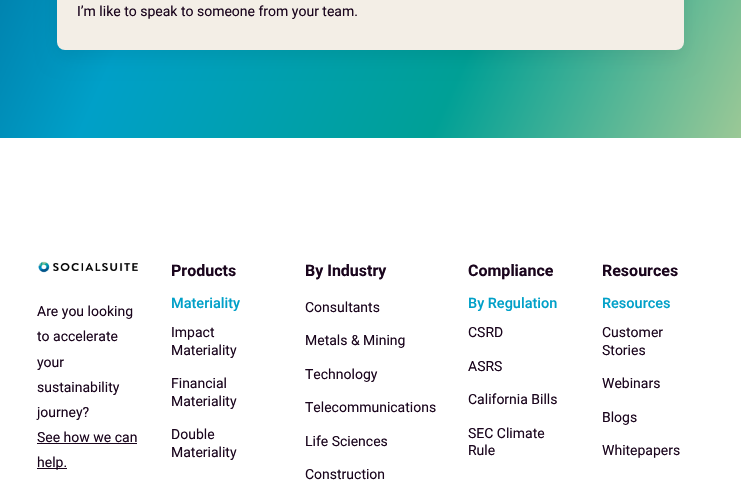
void draw(SkCanvas* canvas) {
	SkPaint paint;
	paint.setAntiAlias(true);
	canvas->clear(0xffffffff);
	{
		const SkColor colors[] = {0xff014e82, 0xff00a0c8, 0xff00a096, 0xff9bc896};
		const float stops[] = {0, 0.38, 0.71, 1};
		const SkPoint ends[] = {{-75, -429}, {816, -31}};
		paint.setShader(SkGradientShader::MakeLinear(ends, colors, stops, 4, SkTileMode::kClamp));
		paint.setAlpha(255);
	}
	canvas->drawRect(SkRect::MakeXYWH(0, 0, 741, 138), paint);
	paint.setShader(nullptr);
	paint.setColor(0x12000000);
	paint.setMaskFilter(SkMaskFilter::MakeBlur(kNormal_SkBlurStyle, 10));
	canvas->drawRoundRect(SkRect::MakeXYWH(57, -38, 627, 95), 8, 8, paint);
	paint.setMaskFilter(nullptr);
	paint.setColor(0xfff3eee6);
	canvas->drawRoundRect(SkRect::MakeXYWH(57, -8, 627, 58), 8, 8, paint);
	SkFont f1(fontMgr->matchFamilyStyle("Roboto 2", SkFontStyle::Normal()), 14);
	f1.setSubpixel(true);
	paint.setColor(0xff1a051d);
	canvas->drawString("I’m like to speak to someone from your team.", 77, 16, f1, paint);
	canvas->drawImageRect(SkImages::DeferredFromEncodedData(SkData::MakeFromFileName("img1.png")), SkRect::MakeXYWH(38, 261, 100, 12), SkSamplingOptions());
	SkFont f2(fontMgr->matchFamilyStyle("Roboto", SkFontStyle::Normal()), 14);
	f2.setSubpixel(true);
	canvas->drawString("Are you looking", 37, 316, f2, paint);
	canvas->drawString("to accelerate", 37, 341, f2, paint);
	canvas->drawString("your", 37, 367, f2, paint);
	canvas->drawString("sustainability", 37, 392, f2, paint);
	canvas->drawString("journey?", 37, 417, f2, paint);
	canvas->drawString("See how we can", 37, 442, f2, paint);
	canvas->drawRect(SkRect::MakeXYWH(37, 443, 100, 1), paint);
	canvas->drawRect(SkRect::MakeXYWH(37, 468, 30, 1), paint);
	canvas->drawString("help.", 37, 467, f2, paint);
	SkFont f3(fontMgr->matchFamilyStyle("Roboto", SkFontStyle::Bold()), 16);
	f3.setSubpixel(true);
	canvas->drawString("Products", 171, 276, f3, paint);
	SkFont f4(fontMgr->matchFamilyStyle("Roboto", SkFontStyle(500, SkFontStyle::kNormal_Width, SkFontStyle::kUpright_Slant)), 14.5);
	f4.setSubpixel(true);
	paint.setColor(0xff00a0c8);
	canvas->drawString("Materiality", 171, 308, f4, paint);
	paint.setColor(0xff1a051d);
	canvas->drawString("Impact", 171, 337, f2, paint);
	canvas->drawString("Materiality", 171, 355, f2, paint);
	canvas->drawString("Financial", 171, 388, f2, paint);
	canvas->drawString("Materiality", 171, 406, f2, paint);
	canvas->drawString("Double", 171, 439, f2, paint);
	canvas->drawString("Materiality", 171, 457, f2, paint);
	canvas->drawString("By Industry", 305, 276, f3, paint);
	canvas->drawString("Consultants", 305, 312, f2, paint);
	canvas->drawString("Metals & Mining", 305, 345, f2, paint);
	canvas->drawString("Technology", 305, 379, f2, paint);
	canvas->drawString("Telecommunications", 305, 412, f2, paint);
	canvas->drawString("Life Sciences", 305, 446, f2, paint);
	canvas->drawString("Construction", 305, 479, f2, paint);
	canvas->drawString("Compliance", 468, 276, f3, paint);
	paint.setColor(0xff00a0c8);
	canvas->drawString("By Regulation", 468, 308, f4, paint);
	paint.setColor(0xff1a051d);
	canvas->drawString("CSRD", 468, 337, f2, paint);
	canvas->drawString("ASRS", 468, 371, f2, paint);
	canvas->drawString("California Bills", 468, 404, f2, paint);
	canvas->drawString("SEC Climate", 468, 438, f2, paint);
	canvas->drawString("Rule", 468, 455, f2, paint);
	canvas->drawString("Resources", 602, 276, f3, paint);
	paint.setColor(0xff00a0c8);
	canvas->drawString("Resources", 602, 308, f4, paint);
	paint.setColor(0xff1a051d);
	canvas->drawString("Customer", 602, 337, f2, paint);
	canvas->drawString("Stories", 602, 355, f2, paint);
	canvas->drawString("Webinars", 602, 388, f2, paint);
	canvas->drawString("Blogs", 602, 422, f2, paint);
	canvas->drawString("Whitepapers", 602, 455, f2, paint);
}
